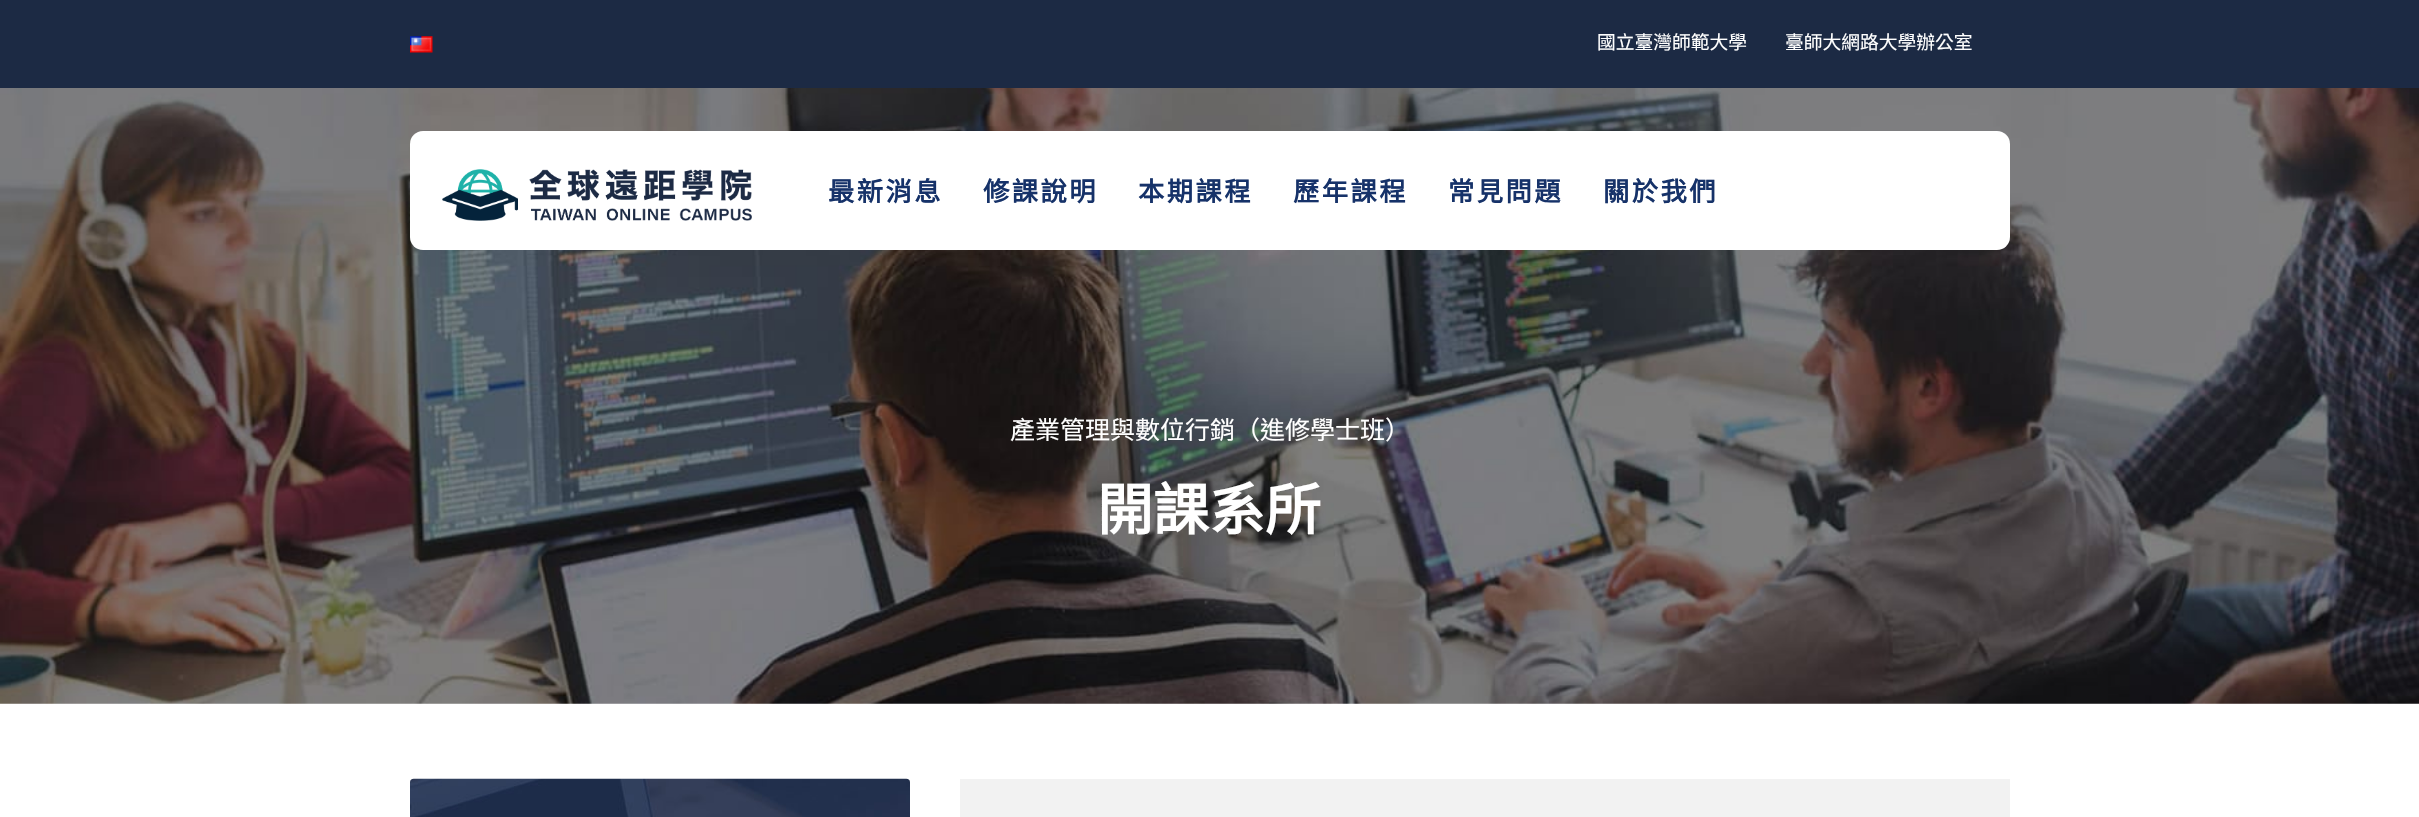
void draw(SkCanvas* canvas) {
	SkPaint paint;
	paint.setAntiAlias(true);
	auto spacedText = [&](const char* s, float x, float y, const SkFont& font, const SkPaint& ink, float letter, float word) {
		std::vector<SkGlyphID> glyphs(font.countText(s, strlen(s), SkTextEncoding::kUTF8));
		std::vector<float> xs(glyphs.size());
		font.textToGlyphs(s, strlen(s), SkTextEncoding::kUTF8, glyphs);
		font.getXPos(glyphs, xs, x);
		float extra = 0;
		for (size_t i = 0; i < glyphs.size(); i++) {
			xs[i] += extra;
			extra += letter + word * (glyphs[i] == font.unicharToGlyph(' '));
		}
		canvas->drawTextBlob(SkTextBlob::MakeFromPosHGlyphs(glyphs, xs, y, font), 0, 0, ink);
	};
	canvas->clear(0xffffffff);
	paint.setColor(0xff1c2a44);
	canvas->drawRect(SkRect::MakeXYWH(0, 0, 2419, 88), paint);
	canvas->drawImageRect(SkImages::DeferredFromEncodedData(SkData::MakeFromFileName("img1.png")), SkRect::MakeXYWH(410, 36, 23, 17), SkSamplingOptions());
	SkFont f1(fontMgr->matchFamilyStyle("Noto Sans CJK TC", SkFontStyle::Normal()), 18.75);
	f1.setSubpixel(true);
	paint.setColor(0xffffffff);
	canvas->drawString("國立臺灣師範大學", 1597, 49, f1, paint);
	canvas->drawString("臺師大網路大學辦公室", 1785, 49, f1, paint);
	canvas->drawImageRect(SkImages::DeferredFromEncodedData(SkData::MakeFromFileName("img3.png")), SkRect::MakeXYWH(0, 88, 2419, 616), SkSamplingOptions());
	canvas->drawRoundRect(SkRect::MakeXYWH(410, 131, 1600, 119), 13, 13, paint);
	canvas->drawImageRect(SkImages::DeferredFromEncodedData(SkData::MakeFromFileName("img2.png")), SkRect::MakeXYWH(442, 169, 310, 52), SkSamplingOptions());
	SkFont f2(fontMgr->matchFamilyStyle("Noto Sans CJK TC", SkFontStyle::Bold()), 26.25);
	f2.setSubpixel(true);
	paint.setColor(0xff163269);
	spacedText("最新消息", 828, 201, f2, paint, 2.5, 0);
	spacedText("修課說明", 983, 201, f2, paint, 2.5, 0);
	spacedText("本期課程", 1138, 201, f2, paint, 2.5, 0);
	spacedText("歷年課程", 1293, 201, f2, paint, 2.5, 0);
	spacedText("常見問題", 1448, 201, f2, paint, 2.5, 0);
	spacedText("關於我們", 1603, 201, f2, paint, 2.5, 0);
	SkFont f3(fontMgr->matchFamilyStyle("Noto Sans CJK TC", SkFontStyle::Normal()), 25);
	f3.setSubpixel(true);
	paint.setColor(0xffffffff);
	canvas->drawString("產業管理與數位行銷（進修學士班）", 1010, 439, f3, paint);
	SkFont f4(fontMgr->matchFamilyStyle("Noto Sans CJK TC", SkFontStyle::Bold()), 56);
	f4.setSubpixel(true);
	canvas->drawString("開課系所", 1097, 530, f4, paint);
	canvas->drawImageRect(SkImages::DeferredFromEncodedData(SkData::MakeFromFileName("img4.png")), SkRect::MakeXYWH(410, 778, 500, 39), SkSamplingOptions());
	paint.setColor(0xfff2f2f2);
	canvas->drawRect(SkRect::MakeXYWH(960, 779, 1050, 38), paint);
}
